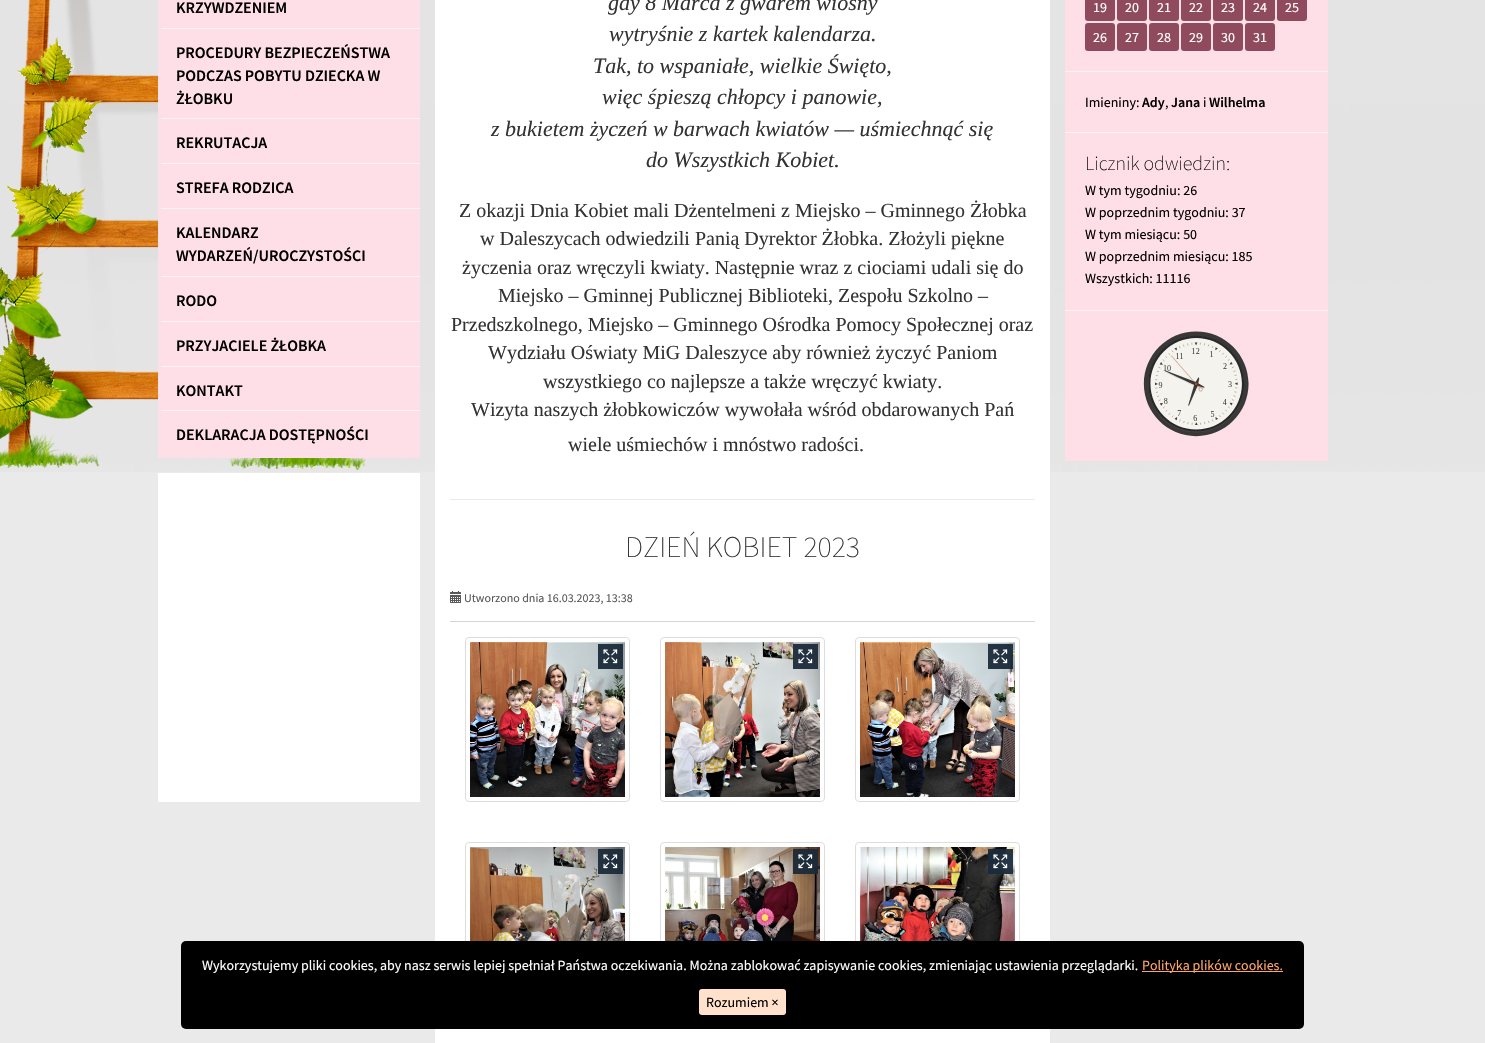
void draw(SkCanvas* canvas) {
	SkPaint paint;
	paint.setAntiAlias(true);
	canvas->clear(0xffeaeaea);
	canvas->drawImageRect(SkImages::DeferredFromEncodedData(SkData::MakeFromFileName("img1.png")), SkRect::MakeXYWH(0, 0, 1485, 472), SkSamplingOptions());
	canvas->drawImageRect(SkImages::DeferredFromEncodedData(SkData::MakeFromFileName("img2.png")), SkRect::MakeXYWH(0, 0, 366, 471), SkSamplingOptions());
	paint.setColor(0xffffffff);
	canvas->drawRect(SkRect::MakeXYWH(435, 0, 615, 1043), paint);
	SkFont f1(fontMgr->matchFamilyStyle("Liberation Serif", SkFontStyle::Italic()), 22);
	f1.setSubpixel(true);
	paint.setColor(0xff333333);
	canvas->drawString("gdy 8 Marca z gwarem wiosny", 608, 10, f1, paint);
	canvas->drawString("wytryśnie z kartek kalendarza.", 609, 41, f1, paint);
	canvas->drawString("Tak, to wspaniałe, wielkie Święto,", 593, 73, f1, paint);
	canvas->drawString("więc śpieszą chłopcy i panowie,", 602, 104, f1, paint);
	canvas->drawString("z bukietem życzeń w barwach kwiatów — uśmiechnąć się", 491, 136, f1, paint);
	canvas->drawString("do Wszystkich Kobiet.", 646, 167, f1, paint);
	SkFont f2(fontMgr->matchFamilyStyle("Liberation Serif", SkFontStyle::Normal()), 20);
	f2.setSubpixel(true);
	canvas->drawString("Z okazji Dnia Kobiet mali Dżentelmeni z Miejsko – Gminnego Żłobka", 459, 217, f2, paint);
	canvas->drawString("w Daleszycach odwiedzili Panią Dyrektor Żłobka. Złożyli piękne", 480, 245, f2, paint);
	canvas->drawString("życzenia oraz wręczyli kwiaty. Następnie wraz z ciociami udali się do", 462, 274, f2, paint);
	canvas->drawString("Miejsko – Gminnej Publicznej Biblioteki, Zespołu Szkolno –", 498, 302, f2, paint);
	canvas->drawString("Przedszkolnego, Miejsko – Gminnego Ośrodka Pomocy Społecznej oraz", 451, 331, f2, paint);
	canvas->drawString("Wydziału Oświaty MiG Daleszyce aby również życzyć Paniom", 488, 359, f2, paint);
	canvas->drawString("wszystkiego co najlepsze a także wręczyć kwiaty.", 543, 388, f2, paint);
	canvas->drawString("Wizyta naszych żłobkowiczów wywołała wśród obdarowanych Pań", 471, 416, f2, paint);
	canvas->drawString("wiele uśmiechów i mnóstwo radości.", 568, 451, f2, paint);
	paint.setColor(0xffebebeb);
	canvas->drawRect(SkRect::MakeXYWH(450, 499, 585, 1), paint);
	paint.setColor(0xffd5d5d5);
	canvas->drawRect(SkRect::MakeXYWH(450, 621, 585, 1), paint);
	SkFont f3(fontMgr->matchFamilyStyle("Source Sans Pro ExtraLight", SkFontStyle(200, SkFontStyle::kNormal_Width, SkFontStyle::kUpright_Slant)), 30);
	f3.setSubpixel(true);
	paint.setColor(0xff333333);
	canvas->drawString("DZIEŃ KOBIET 2023", 625, 557, f3, paint);
	canvas->drawImageRect(SkImages::DeferredFromEncodedData(SkData::MakeFromFileName("img3.png")), SkRect::MakeXYWH(450, 591, 11, 12), SkSamplingOptions());
	SkFont f4(fontMgr->matchFamilyStyle("Source Sans Pro", SkFontStyle::Normal()), 12);
	f4.setSubpixel(true);
	paint.setColor(0xff595959);
	canvas->drawString("Utworzono dnia 16.03.2023, 13:38", 464, 602, f4, paint);
	paint.setStroke(true);
	paint.setStrokeWidth(1);
	paint.setColor(0xffdddddd);
	canvas->drawRoundRect(SkRect::MakeXYWH(465.5, 637.5, 164, 164), 3.5, 3.5, paint);
	canvas->drawImageRect(SkImages::DeferredFromEncodedData(SkData::MakeFromFileName("img4.png")), SkRect::MakeXYWH(470, 642, 155, 155), SkSamplingOptions());
	paint.setStroke(false);
	paint.setColor(0xf0192938);
	canvas->drawRect(SkRect::MakeXYWH(598, 644, 25, 25), paint);
	canvas->drawImageRect(SkImages::DeferredFromEncodedData(SkData::MakeFromFileName("img5.png")), SkRect::MakeXYWH(603, 649, 15, 15), SkSamplingOptions());
	paint.setStroke(true);
	paint.setColor(0xffdddddd);
	canvas->drawRoundRect(SkRect::MakeXYWH(660.5, 637.5, 164, 164), 3.5, 3.5, paint);
	canvas->drawImageRect(SkImages::DeferredFromEncodedData(SkData::MakeFromFileName("img6.png")), SkRect::MakeXYWH(665, 642, 155, 155), SkSamplingOptions());
	paint.setStroke(false);
	paint.setColor(0xf0192938);
	canvas->drawRect(SkRect::MakeXYWH(793, 644, 25, 25), paint);
	canvas->drawImageRect(SkImages::DeferredFromEncodedData(SkData::MakeFromFileName("img7.png")), SkRect::MakeXYWH(798, 649, 15, 15), SkSamplingOptions());
	paint.setStroke(true);
	paint.setColor(0xffdddddd);
	canvas->drawRoundRect(SkRect::MakeXYWH(855.5, 637.5, 164, 164), 3.5, 3.5, paint);
	canvas->drawImageRect(SkImages::DeferredFromEncodedData(SkData::MakeFromFileName("img8.png")), SkRect::MakeXYWH(860, 642, 155, 155), SkSamplingOptions());
	paint.setStroke(false);
	paint.setColor(0xf0192938);
	canvas->drawRect(SkRect::MakeXYWH(988, 644, 25, 25), paint);
	canvas->drawImageRect(SkImages::DeferredFromEncodedData(SkData::MakeFromFileName("img9.png")), SkRect::MakeXYWH(993, 649, 15, 15), SkSamplingOptions());
	paint.setStroke(true);
	paint.setColor(0xffdddddd);
	canvas->drawRoundRect(SkRect::MakeXYWH(465.5, 842.5, 164, 164), 3.5, 3.5, paint);
	canvas->drawImageRect(SkImages::DeferredFromEncodedData(SkData::MakeFromFileName("img10.png")), SkRect::MakeXYWH(470, 847, 155, 94), SkSamplingOptions());
	paint.setStroke(false);
	paint.setColor(0xf0192938);
	canvas->drawRect(SkRect::MakeXYWH(598, 849, 25, 25), paint);
	canvas->drawImageRect(SkImages::DeferredFromEncodedData(SkData::MakeFromFileName("img11.png")), SkRect::MakeXYWH(603, 854, 15, 15), SkSamplingOptions());
	paint.setStroke(true);
	paint.setColor(0xffdddddd);
	canvas->drawRoundRect(SkRect::MakeXYWH(660.5, 842.5, 164, 164), 3.5, 3.5, paint);
	canvas->drawImageRect(SkImages::DeferredFromEncodedData(SkData::MakeFromFileName("img12.png")), SkRect::MakeXYWH(665, 847, 155, 94), SkSamplingOptions());
	paint.setStroke(false);
	paint.setColor(0xf0192938);
	canvas->drawRect(SkRect::MakeXYWH(793, 849, 25, 25), paint);
	canvas->drawImageRect(SkImages::DeferredFromEncodedData(SkData::MakeFromFileName("img13.png")), SkRect::MakeXYWH(798, 854, 15, 15), SkSamplingOptions());
	paint.setStroke(true);
	paint.setColor(0xffdddddd);
	canvas->drawRoundRect(SkRect::MakeXYWH(855.5, 842.5, 164, 164), 3.5, 3.5, paint);
	canvas->drawImageRect(SkImages::DeferredFromEncodedData(SkData::MakeFromFileName("img14.png")), SkRect::MakeXYWH(860, 847, 155, 94), SkSamplingOptions());
	paint.setStroke(false);
	paint.setColor(0xf0192938);
	canvas->drawRect(SkRect::MakeXYWH(988, 849, 25, 25), paint);
	canvas->drawImageRect(SkImages::DeferredFromEncodedData(SkData::MakeFromFileName("img15.png")), SkRect::MakeXYWH(993, 854, 15, 15), SkSamplingOptions());
	paint.setColor(0xfffedfe7);
	canvas->drawRect(SkRect::MakeXYWH(158, 0, 262, 458), paint);
	paint.setColor(0xfffdf3f5);
	canvas->drawRect(SkRect::MakeXYWH(161, 28, 259, 1), paint);
	SkFont f5(fontMgr->matchFamilyStyle("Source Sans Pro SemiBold", SkFontStyle(600, SkFontStyle::kNormal_Width, SkFontStyle::kUpright_Slant)), 16);
	f5.setSubpixel(true);
	paint.setColor(0xff000000);
	canvas->drawString("KRZYWDZENIEM", 176, 13, f5, paint);
	paint.setColor(0xfffdf3f5);
	canvas->drawRect(SkRect::MakeXYWH(161, 118, 259, 1), paint);
	paint.setColor(0xff000000);
	canvas->drawString("PROCEDURY BEZPIECZEŃSTWA", 176, 58, f5, paint);
	canvas->drawString("PODCZAS POBYTU DZIECKA W", 176, 81, f5, paint);
	canvas->drawString("ŻŁOBKU", 176, 104, f5, paint);
	paint.setColor(0xfffdf3f5);
	canvas->drawRect(SkRect::MakeXYWH(161, 163, 259, 1), paint);
	paint.setColor(0xff000000);
	canvas->drawString("REKRUTACJA", 176, 148, f5, paint);
	paint.setColor(0xfffdf3f5);
	canvas->drawRect(SkRect::MakeXYWH(161, 208, 259, 1), paint);
	paint.setColor(0xff000000);
	canvas->drawString("STREFA RODZICA", 176, 193, f5, paint);
	paint.setColor(0xfffdf3f5);
	canvas->drawRect(SkRect::MakeXYWH(161, 276, 259, 1), paint);
	paint.setColor(0xff000000);
	canvas->drawString("KALENDARZ", 176, 238, f5, paint);
	canvas->drawString("WYDARZEŃ/UROCZYSTOŚCI", 176, 261, f5, paint);
	paint.setColor(0xfffdf3f5);
	canvas->drawRect(SkRect::MakeXYWH(161, 321, 259, 1), paint);
	paint.setColor(0xff000000);
	canvas->drawString("RODO", 176, 306, f5, paint);
	paint.setColor(0xfffdf3f5);
	canvas->drawRect(SkRect::MakeXYWH(161, 366, 259, 1), paint);
	paint.setColor(0xff000000);
	canvas->drawString("PRZYJACIELE ŻŁOBKA", 176, 351, f5, paint);
	paint.setColor(0xfffdf3f5);
	canvas->drawRect(SkRect::MakeXYWH(161, 410, 259, 1), paint);
	paint.setColor(0xff000000);
	canvas->drawString("KONTAKT", 176, 396, f5, paint);
	canvas->drawString("DEKLARACJA DOSTĘPNOŚCI", 176, 440, f5, paint);
	paint.setColor(0xffffffff);
	canvas->drawRect(SkRect::MakeXYWH(158, 473, 262, 329), paint);
	paint.setColor(0xfffedfe7);
	canvas->drawRect(SkRect::MakeXYWH(1065, 0, 263, 461), paint);
	paint.setColor(0xfffdf3f5);
	canvas->drawRect(SkRect::MakeXYWH(1065, 71, 263, 1), paint);
	paint.setColor(0xff8f4a5d);
	canvas->drawRoundRect(SkRect::MakeXYWH(1085, -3, 30, 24), 3, 3, paint);
	SkFont f6(fontMgr->matchFamilyStyle("Source Sans Pro", SkFontStyle::Normal()), 14);
	f6.setSubpixel(true);
	paint.setColor(0xffffffff);
	canvas->drawString("19", 1093, 12, f6, paint);
	paint.setColor(0xff8f4a5d);
	canvas->drawRoundRect(SkRect::MakeXYWH(1117, -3, 30, 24), 3, 3, paint);
	paint.setColor(0xffffffff);
	canvas->drawString("20", 1125, 12, f6, paint);
	paint.setColor(0xff8f4a5d);
	canvas->drawRoundRect(SkRect::MakeXYWH(1149, -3, 30, 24), 3, 3, paint);
	paint.setColor(0xffffffff);
	canvas->drawString("21", 1157, 12, f6, paint);
	paint.setColor(0xff8f4a5d);
	canvas->drawRoundRect(SkRect::MakeXYWH(1181, -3, 30, 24), 3, 3, paint);
	paint.setColor(0xffffffff);
	canvas->drawString("22", 1189, 12, f6, paint);
	paint.setColor(0xff8f4a5d);
	canvas->drawRoundRect(SkRect::MakeXYWH(1213, -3, 30, 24), 3, 3, paint);
	paint.setColor(0xffffffff);
	canvas->drawString("23", 1221, 12, f6, paint);
	paint.setColor(0xff8f4a5d);
	canvas->drawRoundRect(SkRect::MakeXYWH(1245, -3, 30, 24), 3, 3, paint);
	paint.setColor(0xffffffff);
	canvas->drawString("24", 1253, 12, f6, paint);
	paint.setColor(0xff8f4a5d);
	canvas->drawRoundRect(SkRect::MakeXYWH(1277, -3, 30, 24), 3, 3, paint);
	paint.setColor(0xffffffff);
	canvas->drawString("25", 1285, 12, f6, paint);
	paint.setColor(0xff8f4a5d);
	canvas->drawRoundRect(SkRect::MakeXYWH(1085, 23, 30, 28), 3, 3, paint);
	paint.setColor(0xffffffff);
	canvas->drawString("26", 1093, 42, f6, paint);
	paint.setColor(0xff8f4a5d);
	canvas->drawRoundRect(SkRect::MakeXYWH(1117, 23, 30, 28), 3, 3, paint);
	paint.setColor(0xffffffff);
	canvas->drawString("27", 1125, 42, f6, paint);
	paint.setColor(0xff8f4a5d);
	canvas->drawRoundRect(SkRect::MakeXYWH(1149, 23, 30, 28), 3, 3, paint);
	paint.setColor(0xffffffff);
	canvas->drawString("28", 1157, 42, f6, paint);
	paint.setColor(0xff8f4a5d);
	canvas->drawRoundRect(SkRect::MakeXYWH(1181, 23, 30, 28), 3, 3, paint);
	paint.setColor(0xffffffff);
	canvas->drawString("29", 1189, 42, f6, paint);
	paint.setColor(0xff8f4a5d);
	canvas->drawRoundRect(SkRect::MakeXYWH(1213, 23, 30, 28), 3, 3, paint);
	paint.setColor(0xffffffff);
	canvas->drawString("30", 1221, 42, f6, paint);
	paint.setColor(0xff8f4a5d);
	canvas->drawRoundRect(SkRect::MakeXYWH(1245, 23, 30, 28), 3, 3, paint);
	paint.setColor(0xffffffff);
	canvas->drawString("31", 1253, 42, f6, paint);
	paint.setColor(0xfffdf3f5);
	canvas->drawRect(SkRect::MakeXYWH(1065, 132, 263, 1), paint);
	paint.setColor(0xff000000);
	canvas->drawString("Imieniny:", 1085, 107, f6, paint);
	SkFont f7(fontMgr->matchFamilyStyle("Source Sans Pro SemiBold", SkFontStyle(600, SkFontStyle::kNormal_Width, SkFontStyle::kUpright_Slant)), 14);
	f7.setSubpixel(true);
	canvas->drawString("Ady", 1142, 107, f7, paint);
	canvas->drawString(",", 1165, 107, f6, paint);
	canvas->drawString("Jana", 1171, 107, f7, paint);
	canvas->drawString("i", 1203, 107, f6, paint);
	canvas->drawString("Wilhelma", 1209, 107, f7, paint);
	paint.setColor(0xfffdf3f5);
	canvas->drawRect(SkRect::MakeXYWH(1065, 310, 263, 1), paint);
	SkFont f8(fontMgr->matchFamilyStyle("Source Sans Pro ExtraLight", SkFontStyle(200, SkFontStyle::kNormal_Width, SkFontStyle::kUpright_Slant)), 20);
	f8.setSubpixel(true);
	paint.setColor(0xff000000);
	canvas->drawString("Licznik odwiedzin:", 1085, 170, f8, paint);
	canvas->drawString("W tym tygodniu: 26", 1085, 195, f6, paint);
	canvas->drawString("W poprzednim tygodniu: 37", 1085, 217, f6, paint);
	canvas->drawString("W tym miesiącu: 50", 1085, 239, f6, paint);
	canvas->drawString("W poprzednim miesiącu: 185", 1085, 261, f6, paint);
	canvas->drawString("Wszystkich: 11116", 1085, 283, f6, paint);
	canvas->drawImageRect(SkImages::DeferredFromEncodedData(SkData::MakeFromFileName("img16.png")), SkRect::MakeXYWH(1143, 331, 106, 106), SkSamplingOptions());
	canvas->drawRoundRect(SkRect::MakeXYWH(181, 941, 1123, 88), 5, 5, paint);
	paint.setColor(0xffffffff);
	canvas->drawString("Wykorzystujemy pliki cookies, aby nasz serwis lepiej spełniał Państwa oczekiwania. Można zablokować zapisywanie cookies, zmieniając ustawienia przeglądarki.", 202, 970, f6, paint);
	paint.setColor(0xffffa666);
	canvas->drawRect(SkRect::MakeXYWH(1142, 971, 141, 1), paint);
	canvas->drawString("Polityka plików cookies.", 1142, 970, f6, paint);
	paint.setColor(0xffffe1cc);
	canvas->drawRoundRect(SkRect::MakeXYWH(699, 989, 87, 26), 3, 3, paint);
	paint.setColor(0xff000000);
	canvas->drawString("Rozumiem ×", 706, 1007, f6, paint);
}
